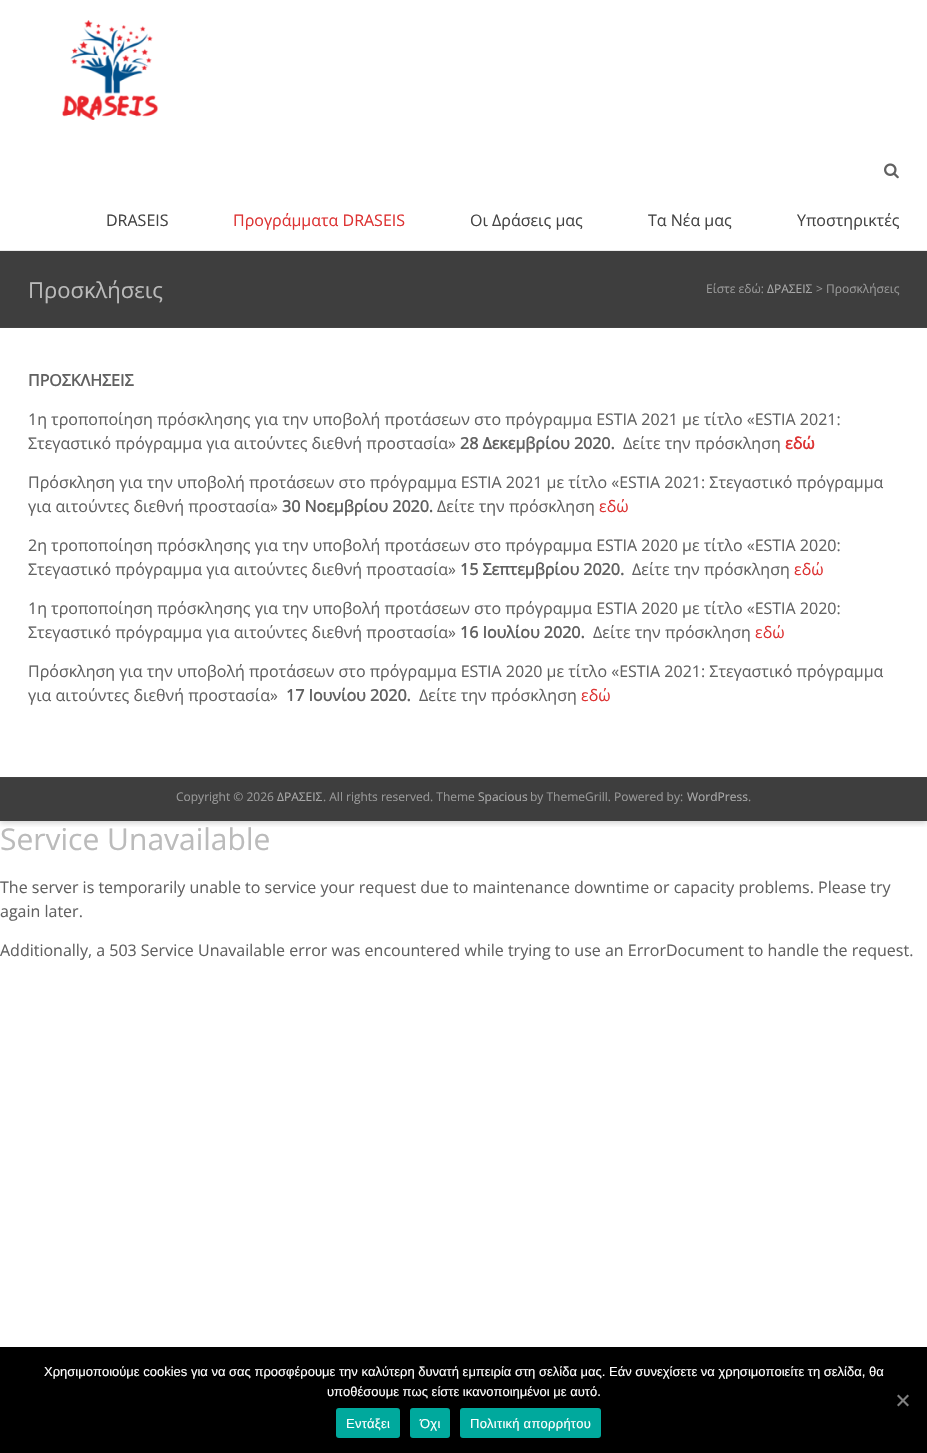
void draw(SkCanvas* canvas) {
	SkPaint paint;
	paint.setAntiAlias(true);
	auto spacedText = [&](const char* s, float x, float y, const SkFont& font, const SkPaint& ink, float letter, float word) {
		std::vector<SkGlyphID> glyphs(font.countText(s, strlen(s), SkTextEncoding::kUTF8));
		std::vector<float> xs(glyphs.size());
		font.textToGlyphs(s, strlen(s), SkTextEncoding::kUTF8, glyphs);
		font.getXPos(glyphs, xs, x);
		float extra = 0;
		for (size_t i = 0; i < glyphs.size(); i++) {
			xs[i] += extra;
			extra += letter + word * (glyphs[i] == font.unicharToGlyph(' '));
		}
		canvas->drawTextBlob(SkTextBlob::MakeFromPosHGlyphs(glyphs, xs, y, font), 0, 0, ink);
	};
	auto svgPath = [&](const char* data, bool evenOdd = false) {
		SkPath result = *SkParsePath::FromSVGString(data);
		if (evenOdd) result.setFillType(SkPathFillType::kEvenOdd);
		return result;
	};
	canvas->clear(0xffffffff);
	canvas->save();
	canvas->clipRect(SkRect::MakeXYWH(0, 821, 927, 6));
	paint.setColor(0x4d646464);
	paint.setMaskFilter(SkMaskFilter::MakeBlur(kNormal_SkBlurStyle, 3));
	canvas->drawRect(SkRect::MakeXYWH(0, 2, 927, 821), paint);
	paint.setMaskFilter(nullptr);
	canvas->restore();
	paint.setColor(0xffeaeaea);
	canvas->drawRect(SkRect::MakeXYWH(0, 250, 927, 1), paint);
	canvas->drawImageRect(SkImages::DeferredFromEncodedData(SkData::MakeFromFileName("img1.png")), SkRect::MakeXYWH(62, 20, 97, 100), SkSamplingOptions());
	canvas->drawImageRect(SkImages::DeferredFromEncodedData(SkData::MakeFromFileName("img2.png")), SkRect::MakeXYWH(884, 163, 15, 16), SkSamplingOptions());
	SkFont f1(fontMgr->matchFamilyStyle("Open Sans", SkFontStyle::Normal()), 16);
	f1.setSubpixel(true);
	paint.setColor(0xff444444);
	canvas->drawString("DRASEIS", 106, 226, f1, paint);
	paint.setColor(0xffdd3333);
	canvas->drawString("Προγράμματα DRASEIS", 233, 226, f1, paint);
	paint.setColor(0xff444444);
	canvas->drawString("Οι Δράσεις μας", 470, 226, f1, paint);
	canvas->drawString("Τα Νέα μας", 648, 226, f1, paint);
	canvas->drawString("Υποστηρικτές", 797, 226, f1, paint);
	paint.setColor(0xff3e3e3e);
	canvas->drawRect(SkRect::MakeXYWH(0, 251, 927, 76), paint);
	paint.setColor(0xff444444);
	canvas->drawRect(SkRect::MakeXYWH(0, 327, 927, 1), paint);
	SkFont f2(fontMgr->matchFamilyStyle("Open Sans", SkFontStyle::Normal()), 22);
	f2.setSubpixel(true);
	paint.setColor(0xffbbbbbb);
	canvas->drawString("Προσκλήσεις", 28, 298, f2, paint);
	SkFont f3(fontMgr->matchFamilyStyle("Open Sans", SkFontStyle::Normal()), 12);
	f3.setSubpixel(true);
	paint.setColor(0xff999999);
	canvas->drawString("Είστε εδώ:", 706, 293, f3, paint);
	paint.setColor(0xffaaaaaa);
	canvas->drawString("ΔΡΑΣΕΙΣ", 767, 293, f3, paint);
	paint.setColor(0xff999999);
	canvas->drawString("> Προσκλήσεις", 816, 293, f3, paint);
	SkFont f4(fontMgr->matchFamilyStyle("Open Sans", SkFontStyle::Bold()), 16);
	f4.setSubpixel(true);
	paint.setColor(0xff616161);
	canvas->drawString("ΠΡΟΣΚΛΗΣΕΙΣ", 28, 386, f4, paint);
	canvas->drawString("1η τροποποίηση πρόσκλησης για την υποβολή προτάσεων στο πρόγραμμα ESTIA 2021 με τίτλο «ESTIA 2021:", 28, 425, f1, paint);
	canvas->drawString("Στεγαστικό πρόγραμμα για αιτούντες διεθνή προστασία»", 28, 449, f1, paint);
	canvas->drawString("28 Δεκεμβρίου 2020.", 460, 449, f4, paint);
	canvas->drawString("Δείτε την πρόσκληση", 623, 449, f1, paint);
	paint.setColor(0xffdd3333);
	canvas->drawString("εδώ", 785, 449, f4, paint);
	paint.setColor(0xff616161);
	canvas->drawString("Πρόσκληση για την υποβολή προτάσεων στο πρόγραμμα ESTIA 2021 με τίτλο «ESTIA 2021: Στεγαστικό πρόγραμμα", 28, 488, f1, paint);
	canvas->drawString("για αιτούντες διεθνή προστασία»", 28, 512, f1, paint);
	canvas->drawString("30 Νοεμβρίου 2020.", 282, 512, f4, paint);
	canvas->drawString("Δείτε την πρόσκληση", 437, 512, f1, paint);
	paint.setColor(0xffdd3333);
	canvas->drawString("εδώ", 599, 512, f1, paint);
	paint.setColor(0xff616161);
	canvas->drawString("2η τροποποίηση πρόσκλησης για την υποβολή προτάσεων στο πρόγραμμα ESTIA 2020 με τίτλο «ESTIA 2020:", 28, 551, f1, paint);
	canvas->drawString("Στεγαστικό πρόγραμμα για αιτούντες διεθνή προστασία»", 28, 575, f1, paint);
	canvas->drawString("15 Σεπτεμβρίου 2020.", 460, 575, f4, paint);
	canvas->drawString("Δείτε την πρόσκληση", 632, 575, f1, paint);
	paint.setColor(0xffdd3333);
	canvas->drawString("εδώ", 794, 575, f1, paint);
	paint.setColor(0xff616161);
	canvas->drawString("1η τροποποίηση πρόσκλησης για την υποβολή προτάσεων στο πρόγραμμα ESTIA 2020 με τίτλο «ESTIA 2020:", 28, 614, f1, paint);
	canvas->drawString("Στεγαστικό πρόγραμμα για αιτούντες διεθνή προστασία»", 28, 638, f1, paint);
	canvas->drawString("16 Ιουλίου 2020.", 460, 638, f4, paint);
	canvas->drawString("Δείτε την πρόσκληση", 593, 638, f1, paint);
	paint.setColor(0xffdd3333);
	canvas->drawString("εδώ", 755, 638, f1, paint);
	paint.setColor(0xff616161);
	canvas->drawString("Πρόσκληση για την υποβολή προτάσεων στο πρόγραμμα ESTIA 2020 με τίτλο «ESTIA 2021: Στεγαστικό πρόγραμμα", 28, 677, f1, paint);
	canvas->drawString("για αιτούντες διεθνή προστασία»", 28, 701, f1, paint);
	canvas->drawString("17 Ιουνίου 2020.", 286, 701, f4, paint);
	canvas->drawString("Δείτε την πρόσκληση", 419, 701, f1, paint);
	paint.setColor(0xffdd3333);
	canvas->drawString("εδώ", 581, 701, f1, paint);
	paint.setColor(0xff3e3e3e);
	canvas->drawRect(SkRect::MakeXYWH(0, 778, 927, 43), paint);
	paint.setColor(0xff444444);
	canvas->drawRect(SkRect::MakeXYWH(0, 777, 927, 1), paint);
	paint.setColor(0xff999999);
	canvas->drawString("Copyright © 2026", 176, 801, f3, paint);
	paint.setColor(0xffaaaaaa);
	canvas->drawString("ΔΡΑΣΕΙΣ", 277, 801, f3, paint);
	paint.setColor(0xff999999);
	canvas->drawString(". All rights reserved. Theme", 323, 801, f3, paint);
	paint.setColor(0xffaaaaaa);
	canvas->drawString("Spacious", 478, 801, f3, paint);
	paint.setColor(0xff999999);
	canvas->drawString("by ThemeGrill. Powered by:", 530, 801, f3, paint);
	paint.setColor(0xffaaaaaa);
	canvas->drawString("WordPress", 687, 801, f3, paint);
	paint.setColor(0xff999999);
	canvas->drawString(".", 748, 801, f3, paint);
	SkFont f5(fontMgr->matchFamilyStyle("Open Sans", SkFontStyle::Normal()), 30);
	f5.setSubpixel(true);
	paint.setColor(0xffbbbbbb);
	canvas->drawString("Service Unavailable", 0, 850, f5, paint);
	paint.setColor(0xff616161);
	canvas->drawString("The server is temporarily unable to service your request due to maintenance downtime or capacity problems. Please try", 0, 893, f1, paint);
	canvas->drawString("again later.", 0, 917, f1, paint);
	canvas->drawString("Additionally, a 503 Service Unavailable error was encountered while trying to use an ErrorDocument to handle the request.", 0, 956, f1, paint);
	paint.setColor(0xff000000);
	canvas->drawRect(SkRect::MakeXYWH(0, 1347, 927, 106), paint);
	SkFont f6(fontMgr->matchFamilyStyle("Liberation Sans", SkFontStyle::Normal()), 13);
	f6.setSubpixel(true);
	paint.setColor(0xffffffff);
	canvas->drawString("Χρησιμοποιούμε cookies για να σας προσφέρουμε την καλύτερη δυνατή εμπειρία στη σελίδα μας. Εάν συνεχίσετε να χρησιμοποιείτε τη σελίδα, θα", 44, 1376, f6, paint);
	canvas->drawString("υποθέσουμε πως είστε ικανοποιημένοι με αυτό.", 327, 1396, f6, paint);
	paint.setColor(0xff808080);
	canvas->drawPath(svgPath("M907.5 1394.5L909 1396L898.5 1406.5L897 1405Z"), paint);
	canvas->drawPath(svgPath("M897 1396L898.5 1394.5L909 1405L907.5 1406.5Z"), paint);
	paint.setColor(0xff00a99d);
	canvas->drawRoundRect(SkRect::MakeXYWH(336, 1408, 64, 30), 3, 3, paint);
	paint.setColor(0xffffffff);
	spacedText("Εντάξει", 346, 1428, f6, paint, 0.25, 0);
	paint.setColor(0xff00a99d);
	canvas->drawRoundRect(SkRect::MakeXYWH(410, 1408, 40, 30), 3, 3, paint);
	paint.setColor(0xffffffff);
	spacedText("Όχι", 420, 1428, f6, paint, 0.25, 0);
	paint.setColor(0xff00a99d);
	canvas->drawRoundRect(SkRect::MakeXYWH(460, 1408, 141, 30), 3, 3, paint);
	paint.setColor(0xffffffff);
	spacedText("Πολιτική απορρήτου", 470, 1428, f6, paint, 0.25, 0);
}
